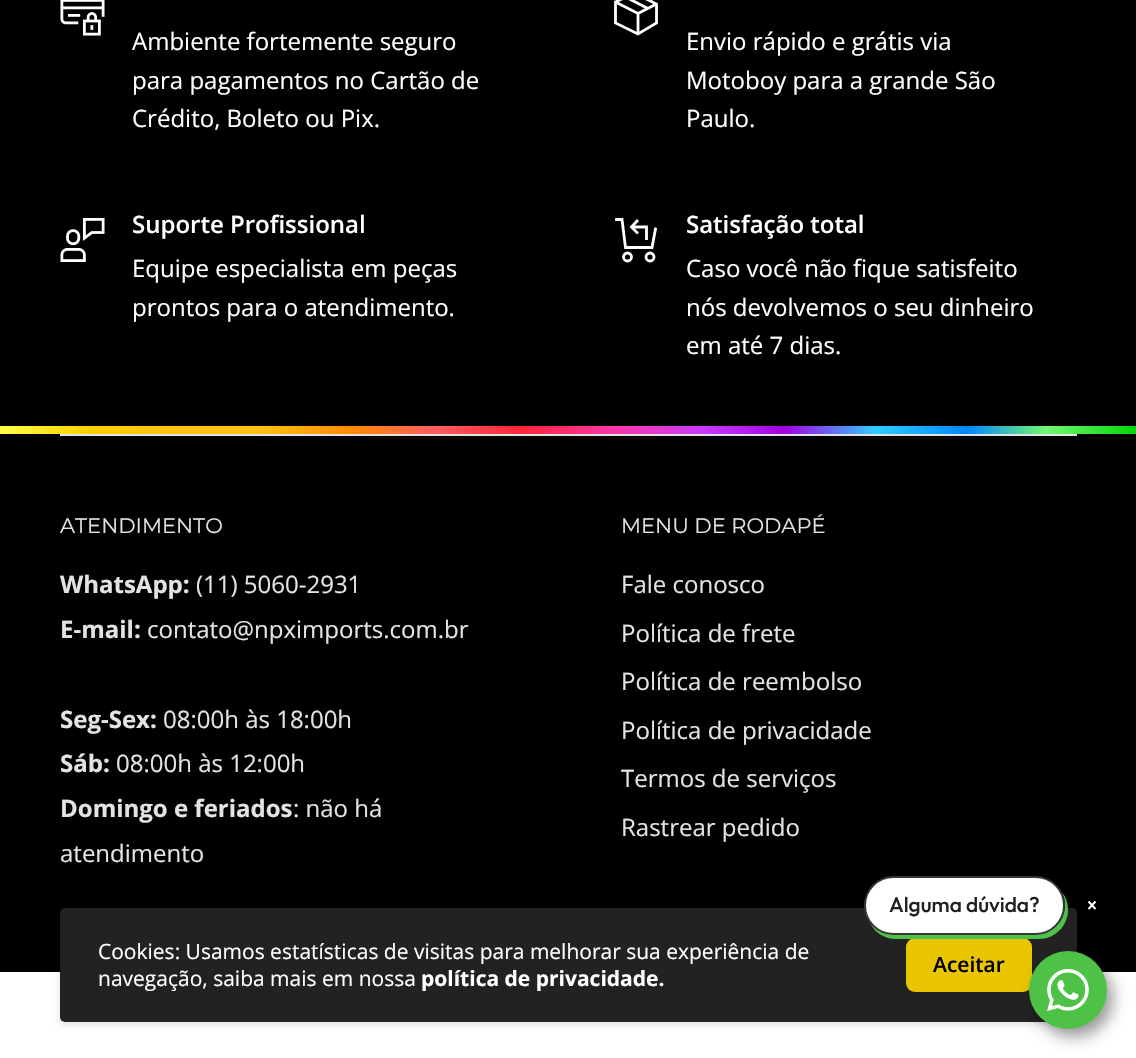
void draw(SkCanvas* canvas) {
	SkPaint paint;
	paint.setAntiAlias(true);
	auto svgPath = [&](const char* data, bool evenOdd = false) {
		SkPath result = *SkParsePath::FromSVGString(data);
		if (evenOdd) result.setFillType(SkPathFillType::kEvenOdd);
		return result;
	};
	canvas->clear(0xff000000);
	canvas->drawImageRect(SkImages::DeferredFromEncodedData(SkData::MakeFromFileName("img1.png")), SkRect::MakeXYWH(60, 0, 45, 36), SkSamplingOptions());
	SkFont f1(fontMgr->matchFamilyStyle("Open Sans", SkFontStyle::Normal()), 24);
	f1.setSubpixel(true);
	paint.setColor(0xffffffff);
	canvas->drawString("Ambiente fortemente seguro", 132, 50, f1, paint);
	canvas->drawString("para pagamentos no Cartão de", 132, 89, f1, paint);
	canvas->drawString("Crédito, Boleto ou Pix.", 132, 127, f1, paint);
	paint.setStroke(true);
	paint.setStrokeWidth(2.8);
	canvas->drawPath(svgPath("M625.5-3L648 8.5M656.5 4L638 13.5L615.5 2M638 13.5V34"), paint);
	paint.setStrokeCap(SkPaint::kSquare_Cap);
	canvas->drawPath(svgPath("M656.5 4V23L638 34L615.5 23V2L634-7Z"), paint);
	paint.setStroke(false);
	canvas->drawString("Envio rápido e grátis via", 686, 50, f1, paint);
	canvas->drawString("Motoboy para a grande São", 686, 89, f1, paint);
	canvas->drawString("Paulo.", 686, 127, f1, paint);
	canvas->drawImageRect(SkImages::DeferredFromEncodedData(SkData::MakeFromFileName("img2.png")), SkRect::MakeXYWH(60, 218, 45, 44), SkSamplingOptions());
	SkFont f2(fontMgr->matchFamilyStyle("Open Sans", SkFontStyle(600, SkFontStyle::kNormal_Width, SkFontStyle::kUpright_Slant)), 24);
	f2.setSubpixel(true);
	canvas->drawString("Suporte Profissional", 132, 233, f2, paint);
	canvas->drawString("Equipe especialista em peças", 132, 277, f1, paint);
	canvas->drawString("prontos para o atendimento.", 132, 316, f1, paint);
	paint.setStroke(true);
	paint.setStrokeCap(SkPaint::kButt_Cap);
	canvas->drawPath(svgPath("M631.5 227H646.5V240"), paint);
	paint.setStrokeCap(SkPaint::kSquare_Cap);
	canvas->drawPath(svgPath("M637 232.5L631.5 227L637 221"), paint);
	canvas->drawPath(svgPath("M655.5 229L652 247.5H625.5L622 219.5H616.5"), paint);
	paint.setStrokeCap(SkPaint::kButt_Cap);
	canvas->drawCircle(627.5, 257, 4, paint);
	canvas->drawCircle(650, 257, 4, paint);
	paint.setStroke(false);
	canvas->drawString("Satisfação total", 686, 233, f2, paint);
	canvas->drawString("Caso você não fique satisfeito", 686, 277, f1, paint);
	canvas->drawString("nós devolvemos o seu dinheiro", 686, 316, f1, paint);
	canvas->drawString("em até 7 dias.", 686, 354, f1, paint);
	{
		const SkColor colors[] = {0xffffff4a, 0xfffcd000, 0xffffc112, 0xffffc112, 0xffff8a00, 0xffff5f5f, 0xffff253a, 0xffff37a8, 0xffc739ff, 0xffa400e1, 0xff2eceff, 0xff0086ff, 0xff72f772, 0xff00d604};
		const float stops[] = {0, 0.08, 0.15, 0.23, 0.31, 0.38, 0.46, 0.54, 0.62, 0.69, 0.77, 0.85, 0.92, 1};
		const SkPoint ends[] = {{0, 430}, {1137, 430}};
		paint.setShader(SkGradientShader::MakeLinear(ends, colors, stops, 14, SkTileMode::kClamp));
		paint.setAlpha(255);
	}
	canvas->drawRect(SkRect::MakeXYWH(0, 426, 1136, 8), paint);
	paint.setShader(nullptr);
	paint.setColor(0xffe1e3e4);
	canvas->drawRect(SkRect::MakeXYWH(60, 434, 1017, 2), paint);
	SkFont f3(fontMgr->matchFamilyStyle("Montserrat", SkFontStyle::Normal()), 21);
	f3.setSubpixel(true);
	canvas->drawString("ATENDIMENTO", 60, 533, f3, paint);
	SkFont f4(fontMgr->matchFamilyStyle("Open Sans", SkFontStyle::Bold()), 24);
	f4.setSubpixel(true);
	canvas->drawString("WhatsApp:", 60, 593, f4, paint);
	canvas->drawString("(11) 5060-2931", 196, 593, f1, paint);
	canvas->drawString("E-mail:", 60, 638, f4, paint);
	canvas->drawString("contato@npximports.com.br", 147, 638, f1, paint);
	canvas->drawString("Seg-Sex:", 60, 728, f4, paint);
	canvas->drawString("08:00h às 18:00h", 163, 728, f1, paint);
	canvas->drawString("Sáb:", 60, 772, f4, paint);
	canvas->drawString("08:00h às 12:00h", 116, 772, f1, paint);
	canvas->drawString("Domingo e feriados", 60, 817, f4, paint);
	canvas->drawString(": não há", 293, 817, f1, paint);
	canvas->drawString("atendimento", 60, 862, f1, paint);
	canvas->drawString("MENU DE RODAPÉ", 621, 533, f3, paint);
	canvas->drawString("Fale conosco", 621, 593, f1, paint);
	canvas->drawString("Política de frete", 621, 642, f1, paint);
	canvas->drawString("Política de reembolso", 621, 690, f1, paint);
	canvas->drawString("Política de privacidade", 621, 739, f1, paint);
	canvas->drawString("Termos de serviços", 621, 787, f1, paint);
	canvas->drawString("Rastrear pedido", 621, 836, f1, paint);
	paint.setColor(0xffffffff);
	canvas->drawRect(SkRect::MakeXYWH(0, 972, 1136, 86), paint);
	paint.setColor(0x1a000000);
	paint.setMaskFilter(SkMaskFilter::MakeBlur(kNormal_SkBlurStyle, 3));
	canvas->drawRoundRect(SkRect::MakeXYWH(59, 908, 1020, 117), 6, 6, paint);
	paint.setMaskFilter(nullptr);
	paint.setColor(0xff232222);
	canvas->drawRoundRect(SkRect::MakeXYWH(60, 908, 1017, 114), 5, 5, paint);
	SkFont f5(fontMgr->matchFamilyStyle("Open Sans", SkFontStyle::Normal()), 21);
	f5.setSubpixel(true);
	paint.setColor(0xffffffff);
	canvas->drawString("Cookies: Usamos estatísticas de visitas para melhorar sua experiência de", 98, 959, f5, paint);
	canvas->drawString("navegação, saiba mais em nossa", 98, 986, f5, paint);
	SkFont f6(fontMgr->matchFamilyStyle("Open Sans", SkFontStyle::Bold()), 21);
	f6.setSubpixel(true);
	canvas->drawString("política de privacidade.", 421, 986, f6, paint);
	paint.setColor(0xffe9c502);
	canvas->drawRoundRect(SkRect::MakeXYWH(906, 938, 126, 54), 9, 9, paint);
	SkFont f7(fontMgr->matchFamilyStyle("Open Sans", SkFontStyle(600, SkFontStyle::kNormal_Width, SkFontStyle::kUpright_Slant)), 21);
	f7.setSubpixel(true);
	paint.setColor(0xff000000);
	canvas->drawString("Aceitar", 933, 972, f7, paint);
	paint.setColor(0x66000000);
	paint.setMaskFilter(SkMaskFilter::MakeBlur(kNormal_SkBlurStyle, 7.5));
	canvas->drawRoundRect(SkRect::MakeXYWH(1035, 959, 78, 78), 39, 39, paint);
	paint.setMaskFilter(nullptr);
	paint.setColor(0xff4dc247);
	canvas->drawPath(svgPath("M870 923C875 933 885 939 896 939H1039C1055 939 1068 926 1068 910C1068 903 1066 897 1062 892C1064 896 1065 901 1065 905C1065 921 1052 934 1036 934H893C884 934 876 930 870 923Z"), paint);
	paint.setColor(0xffffffff);
	canvas->drawRoundRect(SkRect::MakeXYWH(865, 877, 199, 57), 28.5, 28.5, paint);
	paint.setStroke(true);
	paint.setStrokeWidth(2);
	paint.setColor(0xff363636);
	canvas->drawRoundRect(SkRect::MakeXYWH(865, 877, 199, 57), 28.5, 28.5, paint);
	SkFont f8(fontMgr->matchFamilyStyle("Outfit", SkFontStyle(500, SkFontStyle::kNormal_Width, SkFontStyle::kUpright_Slant)), 21);
	f8.setSubpixel(true);
	paint.setStroke(false);
	paint.setColor(0xff202020);
	canvas->drawString("Alguma dúvida?", 889, 912, f8, paint);
	paint.setStroke(true);
	paint.setColor(0xffffffff);
	canvas->drawPath(svgPath("M1088.5 901.5L1095.5 909M1088.5 909L1095.5 901.5"), paint);
	paint.setStroke(false);
	paint.setColor(0xff4dc247);
	canvas->drawCircle(1068, 990, 39, paint);
	canvas->drawImageRect(SkImages::DeferredFromEncodedData(SkData::MakeFromFileName("img3.png")), SkRect::MakeXYWH(1047, 969, 42, 42), SkSamplingOptions());
}
